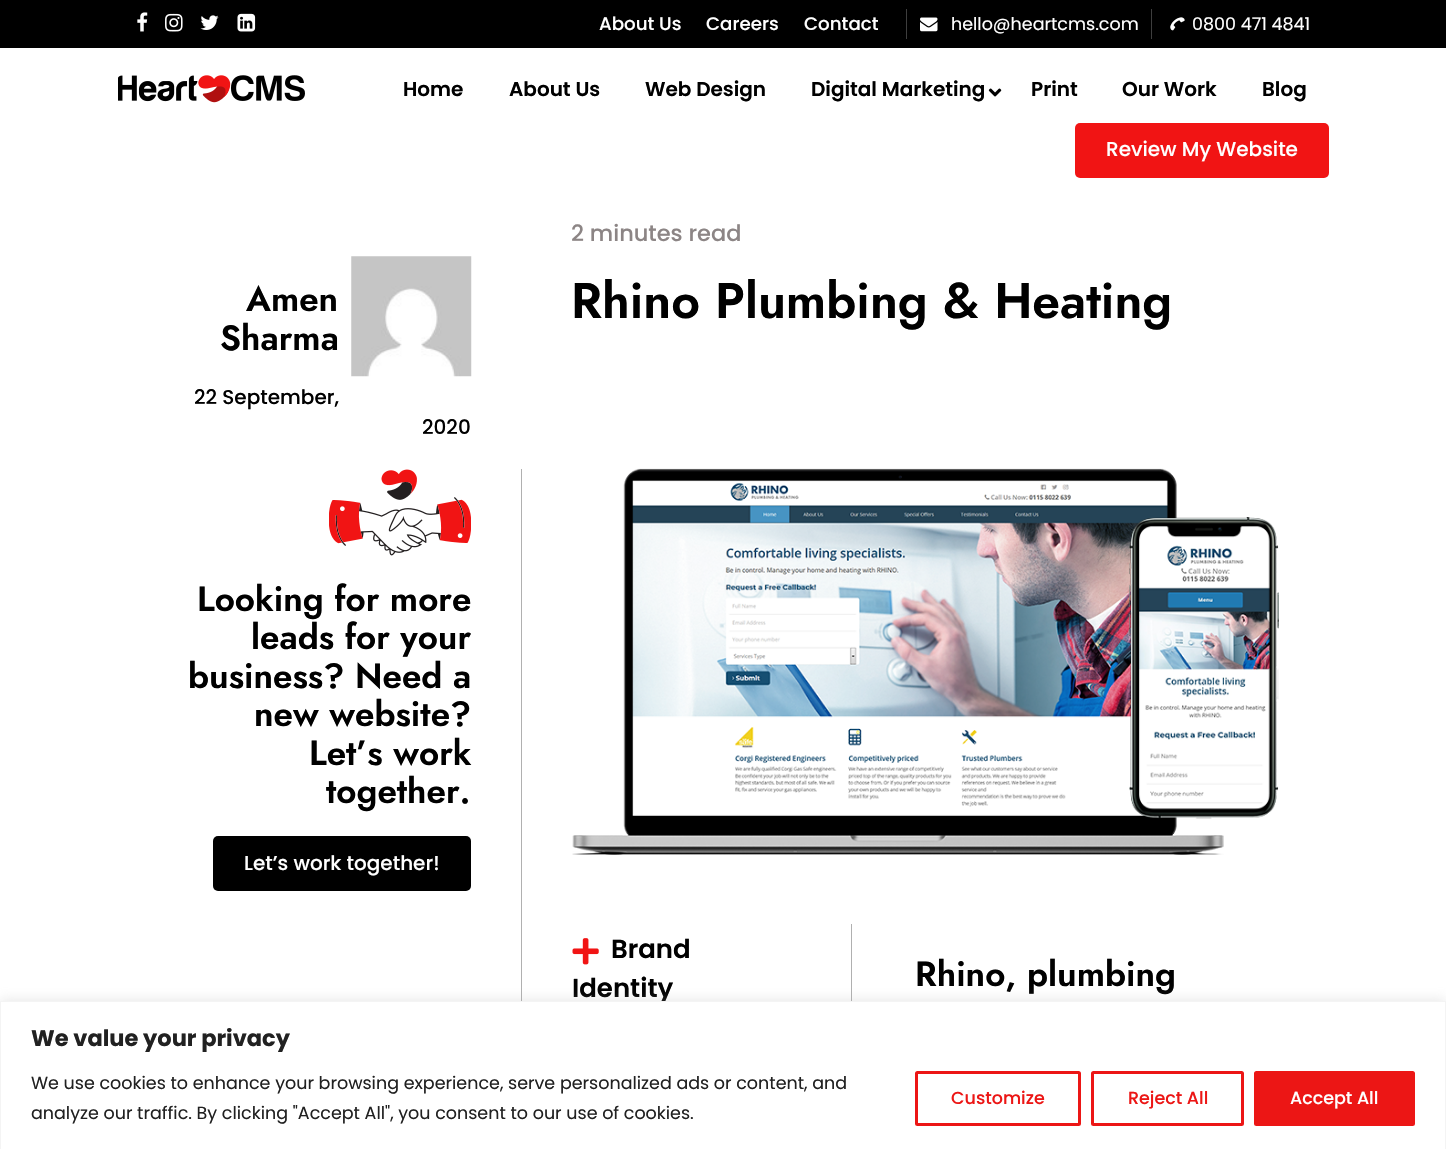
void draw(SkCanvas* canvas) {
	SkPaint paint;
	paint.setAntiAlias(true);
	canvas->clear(0xffffffff);
	paint.setColor(0xff000000);
	canvas->drawRect(SkRect::MakeXYWH(0, 0, 1446, 48), paint);
	canvas->drawImageRect(SkImages::DeferredFromEncodedData(SkData::MakeFromFileName("img1.png")), SkRect::MakeXYWH(137, 12, 11, 20), SkSamplingOptions());
	canvas->drawImageRect(SkImages::DeferredFromEncodedData(SkData::MakeFromFileName("img2.png")), SkRect::MakeXYWH(165, 13, 18, 19), SkSamplingOptions());
	canvas->drawImageRect(SkImages::DeferredFromEncodedData(SkData::MakeFromFileName("img3.png")), SkRect::MakeXYWH(200, 15, 19, 15), SkSamplingOptions());
	canvas->drawImageRect(SkImages::DeferredFromEncodedData(SkData::MakeFromFileName("img4.png")), SkRect::MakeXYWH(237, 13, 19, 19), SkSamplingOptions());
	SkFont f1(fontMgr->matchFamilyStyle("Poppins", SkFontStyle(500, SkFontStyle::kNormal_Width, SkFontStyle::kUpright_Slant)), 18.25);
	f1.setSubpixel(true);
	paint.setColor(0xffffffff);
	canvas->drawString("About Us", 599, 30, f1, paint);
	canvas->drawString("Careers", 706, 30, f1, paint);
	canvas->drawString("Contact", 804, 30, f1, paint);
	paint.setColor(0xff3e3e3e);
	canvas->drawRect(SkRect::MakeXYWH(1151, 9, 1, 30), paint);
	canvas->drawRect(SkRect::MakeXYWH(906, 9, 1, 30), paint);
	canvas->drawImageRect(SkImages::DeferredFromEncodedData(SkData::MakeFromFileName("img5.png")), SkRect::MakeXYWH(920, 17, 18, 15), SkSamplingOptions());
	SkFont f2(fontMgr->matchFamilyStyle("Poppins", SkFontStyle::Normal()), 17.5);
	f2.setSubpixel(true);
	paint.setColor(0xffffffff);
	canvas->drawString("hello@heartcms.com", 951, 30, f2, paint);
	canvas->drawImageRect(SkImages::DeferredFromEncodedData(SkData::MakeFromFileName("img6.png")), SkRect::MakeXYWH(1170, 17, 15, 14), SkSamplingOptions());
	canvas->drawString("0800 471 4841", 1192, 30, f2, paint);
	canvas->drawImageRect(SkImages::DeferredFromEncodedData(SkData::MakeFromFileName("img7.png")), SkRect::MakeXYWH(118, 75, 187, 28), SkSamplingOptions());
	SkFont f3(fontMgr->matchFamilyStyle("Poppins", SkFontStyle(600, SkFontStyle::kNormal_Width, SkFontStyle::kUpright_Slant)), 20);
	f3.setSubpixel(true);
	paint.setColor(0xff000000);
	canvas->drawString("Home", 403, 96, f3, paint);
	canvas->drawString("About Us", 509, 96, f3, paint);
	canvas->drawString("Web Design", 645, 96, f3, paint);
	canvas->drawString("Digital Marketing", 811, 96, f3, paint);
	canvas->drawImageRect(SkImages::DeferredFromEncodedData(SkData::MakeFromFileName("img8.png")), SkRect::MakeXYWH(988, 88, 14, 9), SkSamplingOptions());
	canvas->drawString("Print", 1031, 96, f3, paint);
	canvas->drawString("Our Work", 1122, 96, f3, paint);
	canvas->drawString("Blog", 1262, 96, f3, paint);
	paint.setColor(0xfff11414);
	canvas->drawRoundRect(SkRect::MakeXYWH(1075, 123, 254, 55), 5, 5, paint);
	SkFont f4(fontMgr->matchFamilyStyle("Poppins", SkFontStyle(500, SkFontStyle::kNormal_Width, SkFontStyle::kUpright_Slant)), 20);
	f4.setSubpixel(true);
	paint.setColor(0xffffffff);
	canvas->drawString("Review My Website", 1106, 156, f4, paint);
	SkFont f5(fontMgr->matchFamilyStyle("Jost", SkFontStyle(600, SkFontStyle::kNormal_Width, SkFontStyle::kUpright_Slant)), 35);
	f5.setSubpixel(true);
	paint.setColor(0xff000000);
	canvas->drawString("Amen", 246, 311, f5, paint);
	canvas->drawString("Sharma", 220, 350, f5, paint);
	canvas->drawImageRect(SkImages::DeferredFromEncodedData(SkData::MakeFromFileName("img9.png")), SkRect::MakeXYWH(351, 256, 121, 121), SkSamplingOptions());
	canvas->drawString("22 September,", 194, 404, f4, paint);
	canvas->drawString("2020", 422, 434, f4, paint);
	SkFont f6(fontMgr->matchFamilyStyle("Poppins", SkFontStyle(500, SkFontStyle::kNormal_Width, SkFontStyle::kUpright_Slant)), 22.5);
	f6.setSubpixel(true);
	paint.setColor(0xff8c8585);
	canvas->drawString("2 minutes read", 571, 241, f6, paint);
	SkFont f7(fontMgr->matchFamilyStyle("Jost", SkFontStyle(600, SkFontStyle::kNormal_Width, SkFontStyle::kUpright_Slant)), 50);
	f7.setSubpixel(true);
	paint.setColor(0xff000000);
	canvas->drawString("Rhino Plumbing & Heating", 571, 318, f7, paint);
	canvas->drawImageRect(SkImages::DeferredFromEncodedData(SkData::MakeFromFileName("img10.png")), SkRect::MakeXYWH(329, 469, 142, 87), SkSamplingOptions());
	canvas->drawString("Looking for more", 197, 611, f5, paint);
	canvas->drawString("leads for your", 251, 649, f5, paint);
	canvas->drawString("business? Need a", 188, 688, f5, paint);
	canvas->drawString("new website?", 254, 726, f5, paint);
	canvas->drawString("Let’s work", 309, 765, f5, paint);
	canvas->drawString("together.", 326, 803, f5, paint);
	canvas->drawRoundRect(SkRect::MakeXYWH(213, 836, 258, 55), 5, 5, paint);
	paint.setColor(0xffffffff);
	canvas->drawString("Let’s work together!", 244, 870, f4, paint);
	paint.setColor(0xffb0b0b0);
	canvas->drawRect(SkRect::MakeXYWH(521, 469, 1, 532), paint);
	canvas->drawImageRect(SkImages::DeferredFromEncodedData(SkData::MakeFromFileName("img11.png")), SkRect::MakeXYWH(572, 468, 707, 387), SkSamplingOptions());
	canvas->drawImageRect(SkImages::DeferredFromEncodedData(SkData::MakeFromFileName("img12.png")), SkRect::MakeXYWH(572, 938, 27, 27), SkSamplingOptions());
	SkFont f8(fontMgr->matchFamilyStyle("Poppins", SkFontStyle(600, SkFontStyle::kNormal_Width, SkFontStyle::kUpright_Slant)), 26);
	f8.setSubpixel(true);
	paint.setColor(0xff000000);
	canvas->drawString("Brand", 611, 958, f8, paint);
	canvas->drawString("Identity", 572, 997, f8, paint);
	paint.setColor(0xffb0b0b0);
	canvas->drawRect(SkRect::MakeXYWH(851, 924, 1, 77), paint);
	paint.setColor(0xff000000);
	canvas->drawString("Rhino, plumbing", 915, 986, f5, paint);
	paint.setColor(0x4dacabab);
	paint.setMaskFilter(SkMaskFilter::MakeBlur(kNormal_SkBlurStyle, 6));
	canvas->drawRect(SkRect::MakeXYWH(0, 1000, 1446, 149), paint);
	paint.setMaskFilter(nullptr);
	paint.setColor(0xffffffff);
	canvas->drawRect(SkRect::MakeXYWH(0.5, 1001.5, 1445, 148), paint);
	paint.setStroke(true);
	paint.setStrokeWidth(1);
	paint.setColor(0xfff4f4f4);
	canvas->drawRect(SkRect::MakeXYWH(0.5, 1001.5, 1445, 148), paint);
	SkFont f9(fontMgr->matchFamilyStyle("Poppins", SkFontStyle::Bold()), 22.5);
	f9.setSubpixel(true);
	paint.setStroke(false);
	paint.setColor(0xff212121);
	canvas->drawString("We value your privacy", 31, 1046, f9, paint);
	canvas->drawString("We use cookies to enhance your browsing experience, serve personalized ads or content, and", 31, 1089, f2, paint);
	canvas->drawString("analyze our traffic. By clicking \"Accept All\", you consent to our use of cookies.", 31, 1119, f2, paint);
	paint.setStroke(true);
	paint.setStrokeWidth(3);
	paint.setColor(0xffec1615);
	canvas->drawRoundRect(SkRect::MakeXYWH(916.5, 1072.5, 163, 52), 1, 1, paint);
	SkFont f10(fontMgr->matchFamilyStyle("Poppins", SkFontStyle(500, SkFontStyle::kNormal_Width, SkFontStyle::kUpright_Slant)), 17.5);
	f10.setSubpixel(true);
	paint.setStroke(false);
	canvas->drawString("Customize", 951, 1104, f10, paint);
	paint.setStroke(true);
	canvas->drawRoundRect(SkRect::MakeXYWH(1092.5, 1072.5, 150, 52), 1, 1, paint);
	paint.setStroke(false);
	canvas->drawString("Reject All", 1128, 1104, f10, paint);
	canvas->drawRoundRect(SkRect::MakeXYWH(1255.5, 1072.5, 158, 52), 1, 1, paint);
	paint.setStroke(true);
	canvas->drawRoundRect(SkRect::MakeXYWH(1255.5, 1072.5, 158, 52), 1, 1, paint);
	paint.setStroke(false);
	paint.setColor(0xffffffff);
	canvas->drawString("Accept All", 1290, 1104, f10, paint);
}
